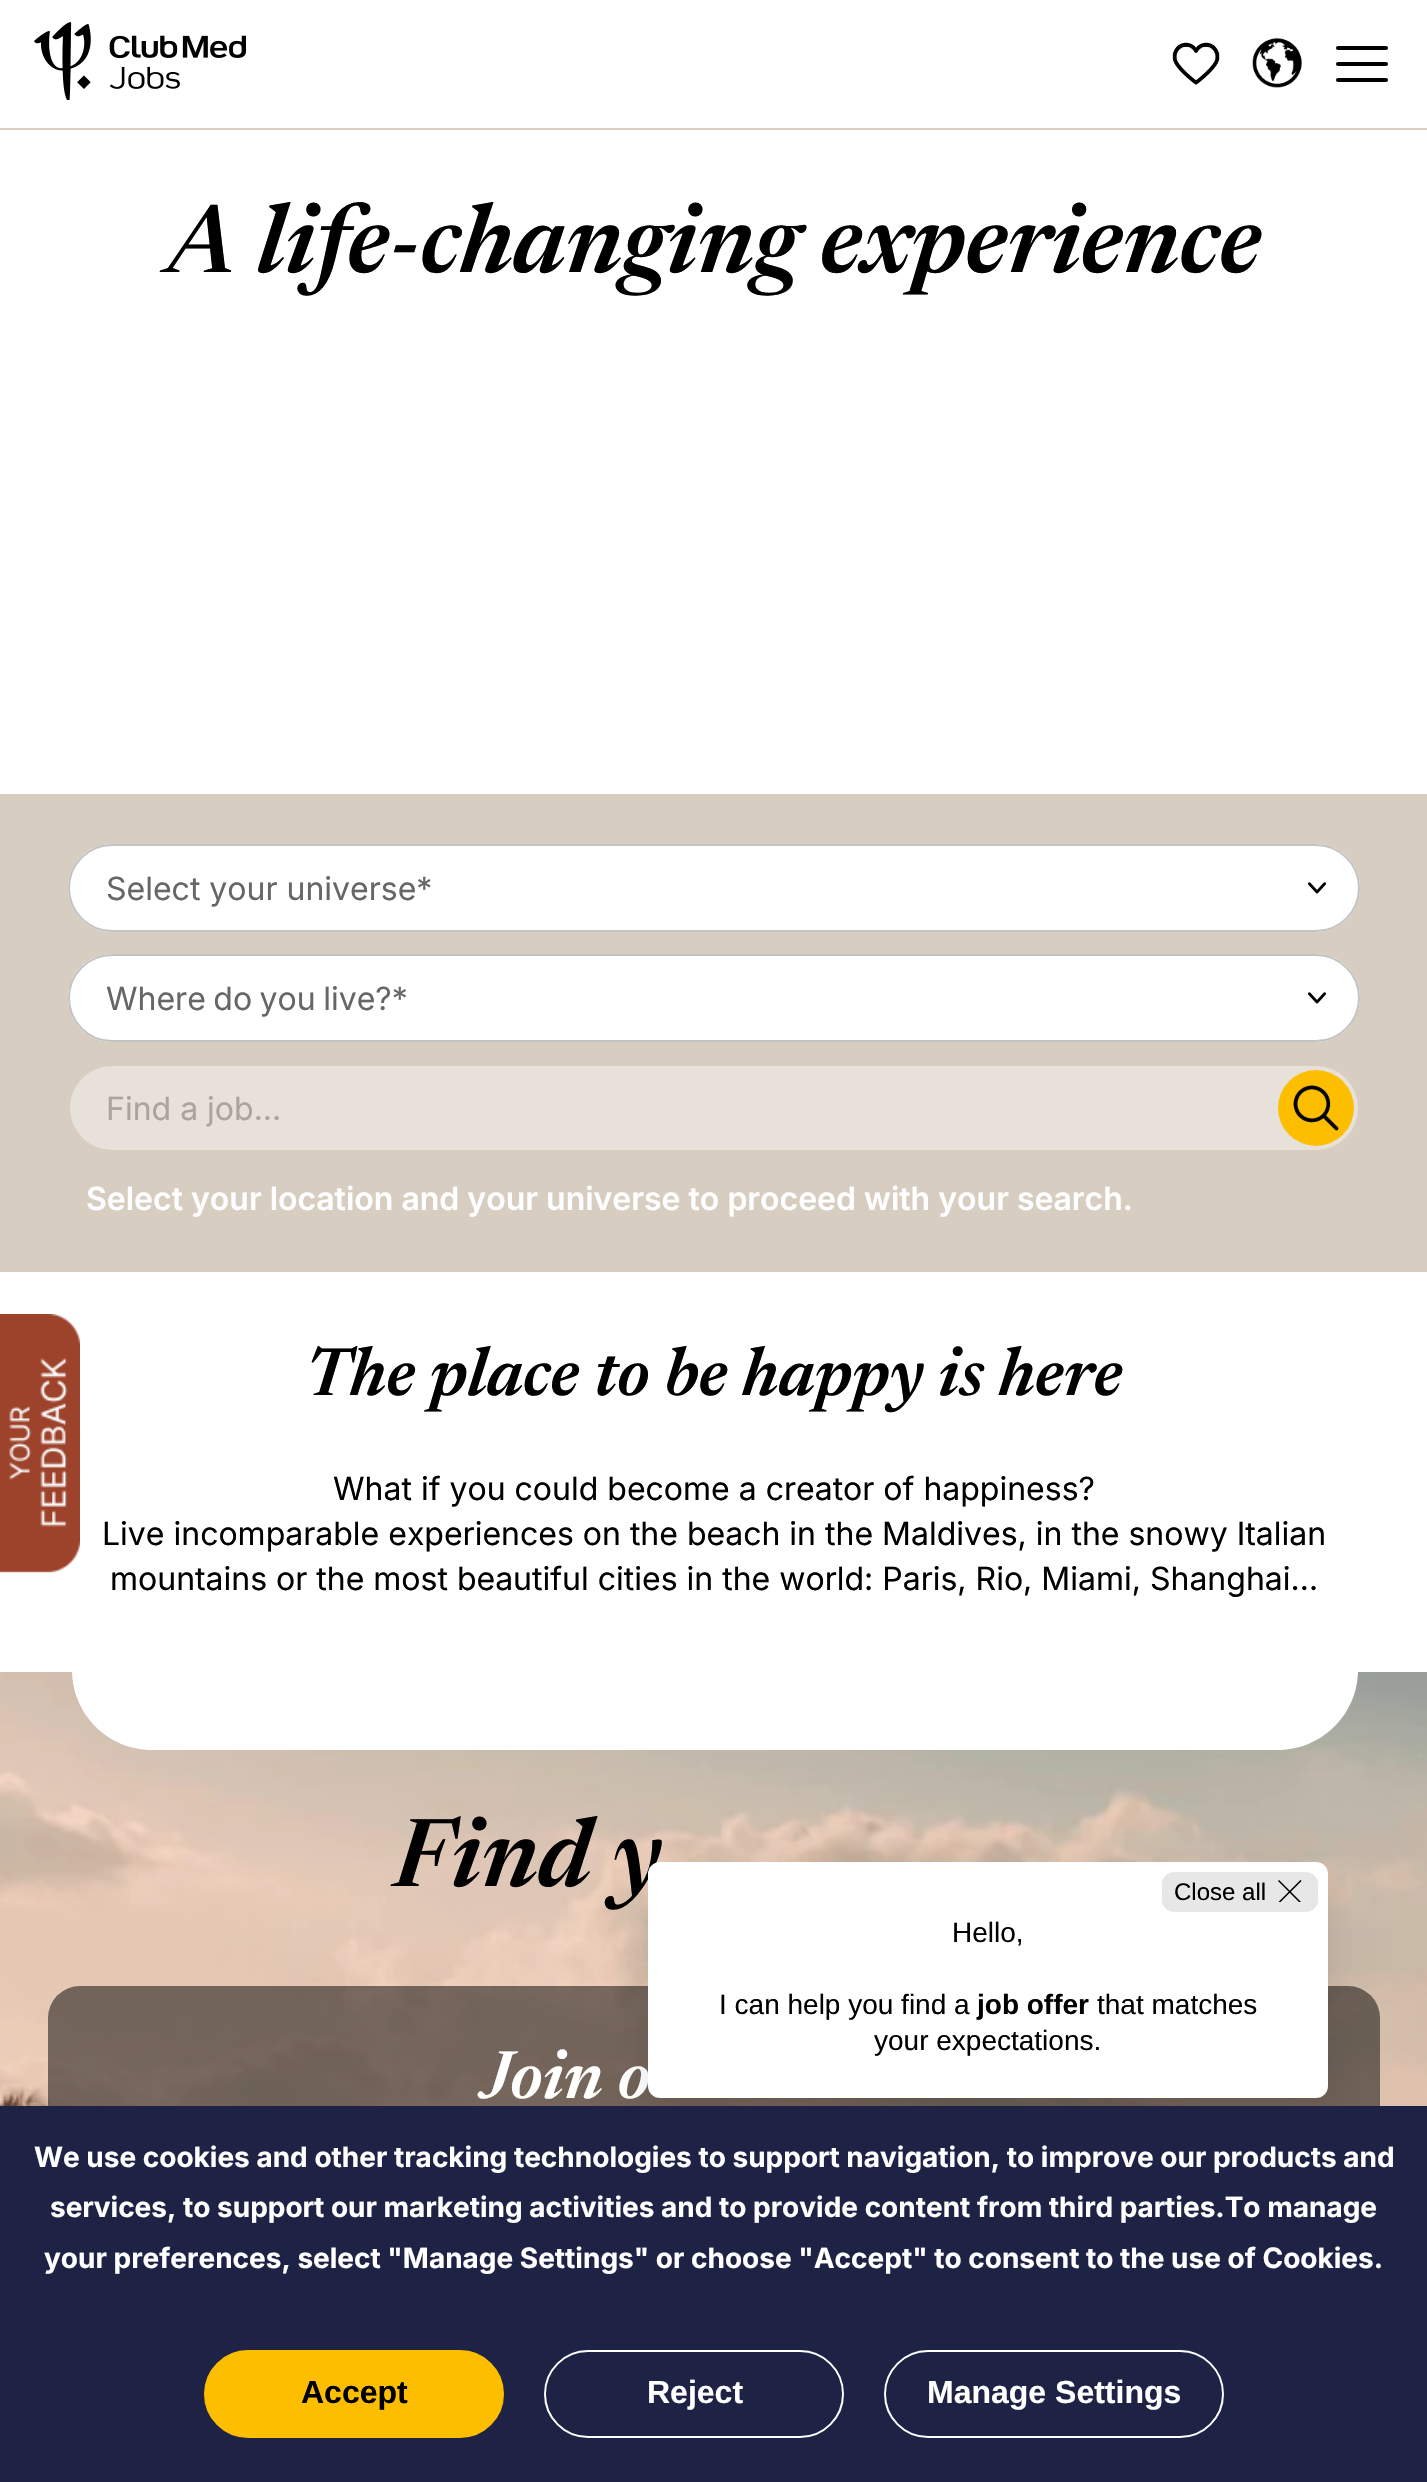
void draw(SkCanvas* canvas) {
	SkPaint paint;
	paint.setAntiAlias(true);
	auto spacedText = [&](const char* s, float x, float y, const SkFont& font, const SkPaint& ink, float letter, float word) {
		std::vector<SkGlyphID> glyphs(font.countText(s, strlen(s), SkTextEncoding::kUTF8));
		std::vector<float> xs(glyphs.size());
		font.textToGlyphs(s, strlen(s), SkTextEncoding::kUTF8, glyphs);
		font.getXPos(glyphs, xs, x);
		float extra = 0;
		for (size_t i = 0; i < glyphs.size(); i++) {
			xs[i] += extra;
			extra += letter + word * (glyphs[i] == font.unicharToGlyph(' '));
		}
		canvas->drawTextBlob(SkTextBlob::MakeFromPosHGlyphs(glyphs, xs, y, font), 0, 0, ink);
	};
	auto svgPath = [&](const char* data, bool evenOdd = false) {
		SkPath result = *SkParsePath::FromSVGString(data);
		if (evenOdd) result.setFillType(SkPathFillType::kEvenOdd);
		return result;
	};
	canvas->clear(0xffffffff);
	canvas->drawImageRect(SkImages::DeferredFromEncodedData(SkData::MakeFromFileName("img1.png")), SkRect::MakeXYWH(0, 1314, 80, 259), SkSamplingOptions());
	paint.setColor(0xffd7cdc1);
	canvas->drawRect(SkRect::MakeXYWH(0, 128, 1427, 2), paint);
	canvas->drawImageRect(SkImages::DeferredFromEncodedData(SkData::MakeFromFileName("img2.png")), SkRect::MakeXYWH(34, 22, 212, 78), SkSamplingOptions());
	canvas->drawImageRect(SkImages::DeferredFromEncodedData(SkData::MakeFromFileName("img3.png")), SkRect::MakeXYWH(1172, 42, 48, 43), SkSamplingOptions());
	canvas->drawImageRect(SkImages::DeferredFromEncodedData(SkData::MakeFromFileName("img4.png")), SkRect::MakeXYWH(1252, 38, 50, 50), SkSamplingOptions());
	paint.setColor(0xff000000);
	canvas->drawRoundRect(SkRect::MakeXYWH(1336, 62, 52, 4), 2, 2, paint);
	canvas->drawRoundRect(SkRect::MakeXYWH(1336, 46, 52, 4), 2, 2, paint);
	canvas->drawRoundRect(SkRect::MakeXYWH(1336, 78, 52, 4), 2, 2, paint);
	SkFont f1(fontMgr->matchFamilyStyle("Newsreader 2", SkFontStyle(600, SkFontStyle::kNormal_Width, SkFontStyle::kItalic_Slant)), 96);
	f1.setSubpixel(true);
	canvas->drawString("A life-changing experience", 167, 272, f1, paint);
	paint.setColor(0xffd7cdc1);
	canvas->drawRect(SkRect::MakeXYWH(0, 794, 1427, 478), paint);
	paint.setColor(0xffffffff);
	canvas->drawRoundRect(SkRect::MakeXYWH(68, 844, 1292, 88), 44, 44, paint);
	canvas->drawImageRect(SkImages::DeferredFromEncodedData(SkData::MakeFromFileName("img5.png")), SkRect::MakeXYWH(1308, 882, 18, 12), SkSamplingOptions());
	paint.setStroke(true);
	paint.setStrokeWidth(2);
	paint.setColor(0xffc2c2c2);
	canvas->drawRoundRect(SkRect::MakeXYWH(69, 845, 1290, 86), 43, 43, paint);
	SkFont f2(fontMgr->matchFamilyStyle("Inter", SkFontStyle::Normal()), 32);
	f2.setSubpixel(true);
	paint.setStroke(false);
	paint.setColor(0xff666666);
	canvas->drawString("Select your universe*", 106, 900, f2, paint);
	paint.setColor(0xffffffff);
	canvas->drawRoundRect(SkRect::MakeXYWH(68, 954, 1292, 88), 44, 44, paint);
	canvas->drawImageRect(SkImages::DeferredFromEncodedData(SkData::MakeFromFileName("img5.png")), SkRect::MakeXYWH(1308, 992, 18, 12), SkSamplingOptions());
	paint.setStroke(true);
	paint.setColor(0xffc2c2c2);
	canvas->drawRoundRect(SkRect::MakeXYWH(69, 955, 1290, 86), 43, 43, paint);
	paint.setStroke(false);
	paint.setColor(0xff666666);
	spacedText("Where do you live?*", 106, 1010, f2, paint, 0, -1.5);
	paint.setColor(0xffe7e1da);
	canvas->drawRoundRect(SkRect::MakeXYWH(69, 1065, 1290, 86), 43, 43, paint);
	paint.setStroke(true);
	paint.setColor(0xffd7cdc1);
	canvas->drawRoundRect(SkRect::MakeXYWH(69, 1065, 1290, 86), 43, 43, paint);
	paint.setStroke(false);
	paint.setColor(0xffaaa49d);
	canvas->drawString("Find a job...", 106, 1120, f2, paint);
	paint.setColor(0xfffdbe00);
	canvas->drawCircle(1316, 1108, 38, paint);
	canvas->drawImageRect(SkImages::DeferredFromEncodedData(SkData::MakeFromFileName("img6.png")), SkRect::MakeXYWH(1293, 1085, 46, 46), SkSamplingOptions());
	SkFont f3(fontMgr->matchFamilyStyle("Inter", SkFontStyle(600, SkFontStyle::kNormal_Width, SkFontStyle::kUpright_Slant)), 32);
	f3.setSubpixel(true);
	paint.setColor(0xffffffff);
	canvas->drawString("Select your location and your universe to proceed with your search.", 86, 1210, f3, paint);
	SkFont f4(fontMgr->matchFamilyStyle("Newsreader", SkFontStyle(600, SkFontStyle::kNormal_Width, SkFontStyle::kItalic_Slant)), 68);
	f4.setSubpixel(true);
	paint.setColor(0xff000000);
	canvas->drawString("The place to be happy is here", 305, 1395, f4, paint);
	canvas->drawString("What if you could become a creator of happiness?", 333, 1500, f2, paint);
	canvas->drawString("Live incomparable experiences on the beach in the Maldives, in the snowy Italian", 102, 1545, f2, paint);
	canvas->drawString("mountains or the most beautiful cities in the world: Paris, Rio, Miami, Shanghai…", 110, 1590, f2, paint);
	canvas->drawImageRect(SkImages::DeferredFromEncodedData(SkData::MakeFromFileName("img7.png")), SkRect::MakeXYWH(0, 1672, 1427, 434), SkSamplingOptions());
	paint.setColor(0xffffffff);
	canvas->drawPath(svgPath("M72 1672H1358V1670C1358 1714 1322 1750 1278 1750H152C108 1750 72 1714 72 1670Z"), paint);
	paint.setColor(0xff000000);
	canvas->drawString("Find y", 394, 1886, f1, paint);
	paint.setColor(0x80000000);
	canvas->drawRoundRect(SkRect::MakeXYWH(48, 1986, 1332, 400), 32, 32, paint);
	paint.setColor(0xffffffff);
	canvas->drawString("Join o", 481, 2098, f4, paint);
	paint.setColor(0x1a000000);
	paint.setMaskFilter(SkMaskFilter::MakeBlur(kNormal_SkBlurStyle, 20));
	canvas->drawRoundRect(SkRect::MakeXYWH(648, 1872, 680, 236), 12, 12, paint);
	paint.setMaskFilter(nullptr);
	paint.setColor(0xffffffff);
	canvas->drawRoundRect(SkRect::MakeXYWH(648, 1862, 680, 236), 12, 12, paint);
	paint.setColor(0xffe7e7e7);
	canvas->drawRoundRect(SkRect::MakeXYWH(1162, 1872, 156, 40), 12, 12, paint);
	SkFont f5(fontMgr->matchFamilyStyle("Liberation Sans", SkFontStyle::Normal()), 24);
	f5.setSubpixel(true);
	paint.setColor(0xff000000);
	canvas->drawString("Close all", 1174, 1900, f5, paint);
	canvas->save();
	canvas->clipRect(SkRect::MakeXYWH(1278, 1880, 24, 22));
	paint.setStroke(true);
	paint.setStrokeWidth(1.5);
	paint.setStrokeCap(SkPaint::kSquare_Cap);
	canvas->drawPath(svgPath("M1300.5 1881L1279 1902.5M1300.5 1902.5L1279 1881"), paint);
	canvas->restore();
	SkFont f6(fontMgr->matchFamilyStyle("Liberation Sans", SkFontStyle::Normal()), 28);
	f6.setSubpixel(true);
	paint.setStroke(false);
	canvas->drawString("Hello,", 952, 1942, f6, paint);
	canvas->drawString("I can help you find a", 719, 2014, f6, paint);
	SkFont f7(fontMgr->matchFamilyStyle("Liberation Sans", SkFontStyle::Bold()), 28);
	f7.setSubpixel(true);
	canvas->drawString("job offer", 977, 2014, f7, paint);
	canvas->drawString("that matches", 1097, 2014, f6, paint);
	canvas->drawString("your expectations.", 874, 2050, f6, paint);
	paint.setColor(0xff1e2346);
	canvas->drawRect(SkRect::MakeXYWH(0, 2106, 1427, 376), paint);
	SkFont f8(fontMgr->matchFamilyStyle("Inter", SkFontStyle::Bold()), 28);
	f8.setSubpixel(true);
	paint.setColor(0xffffffff);
	canvas->drawString("We use cookies and other tracking technologies to support navigation, to improve our products and", 34, 2167, f8, paint);
	canvas->drawString("services, to support our marketing activities and to provide content from third parties.To manage", 50, 2217, f8, paint);
	canvas->drawString("your preferences, select \"Manage Settings\" or choose \"Accept\" to consent to the use of Cookies.", 44, 2268, f8, paint);
	paint.setColor(0xfffdbe00);
	canvas->drawRoundRect(SkRect::MakeXYWH(205, 2351, 298, 86), 43, 43, paint);
	paint.setStroke(true);
	paint.setStrokeWidth(2);
	paint.setStrokeCap(SkPaint::kButt_Cap);
	canvas->drawRoundRect(SkRect::MakeXYWH(205, 2351, 298, 86), 43, 43, paint);
	SkFont f9(fontMgr->matchFamilyStyle("Liberation Sans", SkFontStyle::Bold()), 32);
	f9.setSubpixel(true);
	paint.setStroke(false);
	paint.setColor(0xff000000);
	canvas->drawString("Accept", 301, 2403, f9, paint);
	paint.setStroke(true);
	paint.setColor(0xffffffff);
	canvas->drawRoundRect(SkRect::MakeXYWH(545, 2351, 298, 86), 43, 43, paint);
	paint.setStroke(false);
	canvas->drawString("Reject", 647, 2403, f9, paint);
	paint.setStroke(true);
	canvas->drawRoundRect(SkRect::MakeXYWH(885, 2351, 338, 86), 43, 43, paint);
	paint.setStroke(false);
	canvas->drawString("Manage Settings", 927, 2403, f9, paint);
}
